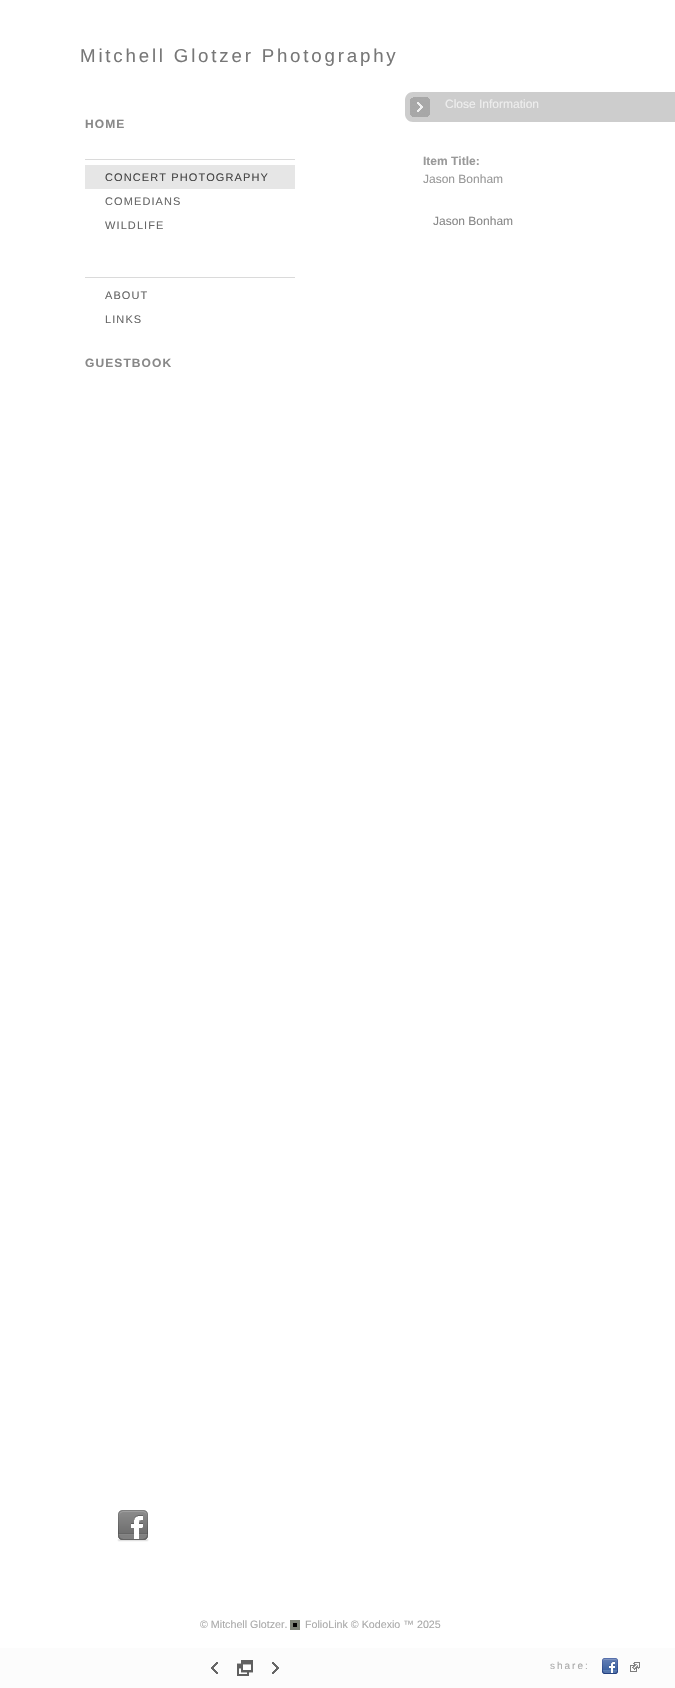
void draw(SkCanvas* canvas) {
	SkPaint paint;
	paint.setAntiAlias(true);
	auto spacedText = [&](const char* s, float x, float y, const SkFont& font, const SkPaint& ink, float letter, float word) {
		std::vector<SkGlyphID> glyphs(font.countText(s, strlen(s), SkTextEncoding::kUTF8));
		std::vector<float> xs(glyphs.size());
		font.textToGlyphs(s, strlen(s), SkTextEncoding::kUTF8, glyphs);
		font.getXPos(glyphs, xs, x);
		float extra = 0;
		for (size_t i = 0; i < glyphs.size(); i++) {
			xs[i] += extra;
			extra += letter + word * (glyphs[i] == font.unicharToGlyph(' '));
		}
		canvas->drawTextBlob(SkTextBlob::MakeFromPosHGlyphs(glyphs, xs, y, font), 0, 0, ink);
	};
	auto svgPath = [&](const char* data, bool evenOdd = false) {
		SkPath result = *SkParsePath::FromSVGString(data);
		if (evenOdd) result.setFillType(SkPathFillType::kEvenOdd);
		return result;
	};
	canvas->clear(0xffffffff);
	SkFont f1(fontMgr->matchFamilyStyle("Liberation Sans", SkFontStyle::Normal()), 18.7);
	f1.setSubpixel(true);
	paint.setColor(0xff777777);
	spacedText("Mitchell Glotzer Photography", 80, 62, f1, paint, 2.8, 0);
	SkFont f2(fontMgr->matchFamilyStyle("Liberation Sans", SkFontStyle::Bold()), 12);
	f2.setSubpixel(true);
	paint.setColor(0xff888888);
	spacedText("HOME", 85, 128, f2, paint, 1.1, 0);
	paint.setColor(0xffdadada);
	canvas->drawRect(SkRect::MakeXYWH(85, 159, 210, 1), paint);
	paint.setColor(0xffe6e6e6);
	canvas->drawRect(SkRect::MakeXYWH(85, 165, 210, 24), paint);
	SkFont f3(fontMgr->matchFamilyStyle("Liberation Sans", SkFontStyle::Normal()), 11);
	f3.setSubpixel(true);
	paint.setColor(0xff444444);
	spacedText("CONCERT PHOTOGRAPHY", 105, 181, f3, paint, 1.1, 0);
	paint.setColor(0xff666666);
	spacedText("COMEDIANS", 105, 205, f3, paint, 1.1, 0);
	spacedText("WILDLIFE", 105, 229, f3, paint, 1.1, 0);
	paint.setColor(0xffdadada);
	canvas->drawRect(SkRect::MakeXYWH(85, 277, 210, 1), paint);
	paint.setColor(0xff666666);
	spacedText("ABOUT", 105, 299, f3, paint, 1.1, 0);
	spacedText("LINKS", 105, 323, f3, paint, 1.1, 0);
	paint.setColor(0xff888888);
	spacedText("GUESTBOOK", 85, 367, f2, paint, 1.1, 0);
	canvas->drawImageRect(SkImages::DeferredFromEncodedData(SkData::MakeFromFileName("img1.png")), SkRect::MakeXYWH(117, 1510, 32, 32), SkSamplingOptions());
	paint.setColor(0xffcdcdcd);
	canvas->drawPath(svgPath("M413 92H675V122H413C408.5 122 405 118.5 405 114V100C405 95.5 408.5 92 413 92Z"), paint);
	canvas->drawImageRect(SkImages::DeferredFromEncodedData(SkData::MakeFromFileName("img2.png")), SkRect::MakeXYWH(410, 97, 20, 20), SkSamplingOptions());
	SkFont f4(fontMgr->matchFamilyStyle("Liberation Sans", SkFontStyle::Normal()), 12);
	f4.setSubpixel(true);
	paint.setColor(0xffeeeeee);
	canvas->drawString("Close Information", 445, 108, f4, paint);
	paint.setColor(0xff999999);
	canvas->drawString("Item Title:", 423, 165, f2, paint);
	canvas->drawString("Jason Bonham", 423, 183, f4, paint);
	paint.setColor(0xff888888);
	canvas->drawString("Jason Bonham", 433, 225, f4, paint);
	SkFont f5(fontMgr->matchFamilyStyle("Liberation Sans", SkFontStyle::Normal()), 10.7);
	f5.setSubpixel(true);
	paint.setColor(0xffaaaaaa);
	canvas->drawString("© Mitchell Glotzer.", 200, 1628, f5, paint);
	canvas->drawImageRect(SkImages::DeferredFromEncodedData(SkData::MakeFromFileName("img3.png")), SkRect::MakeXYWH(290, 1620, 10, 10), SkSamplingOptions());
	canvas->drawString("FolioLink © Kodexio ™ 2025", 305, 1628, f5, paint);
	paint.setColor(0xfffcfcfc);
	canvas->drawRect(SkRect::MakeXYWH(0, 1648, 675, 40), paint);
	canvas->drawImageRect(SkImages::DeferredFromEncodedData(SkData::MakeFromFileName("img4.png")), SkRect::MakeXYWH(211, 1662, 7, 12), SkSamplingOptions());
	canvas->drawImageRect(SkImages::DeferredFromEncodedData(SkData::MakeFromFileName("img5.png")), SkRect::MakeXYWH(237, 1660, 16, 16), SkSamplingOptions());
	canvas->drawImageRect(SkImages::DeferredFromEncodedData(SkData::MakeFromFileName("img6.png")), SkRect::MakeXYWH(237, 1663, 16, 10), SkSamplingOptions());
	canvas->drawImageRect(SkImages::DeferredFromEncodedData(SkData::MakeFromFileName("img7.png")), SkRect::MakeXYWH(272, 1662, 7, 12), SkSamplingOptions());
	SkFont f6(fontMgr->matchFamilyStyle("Liberation Sans", SkFontStyle::Normal()), 10);
	f6.setSubpixel(true);
	paint.setColor(0xffaaaaaa);
	spacedText("share:", 550, 1669, f6, paint, 2, 0);
	canvas->drawImageRect(SkImages::DeferredFromEncodedData(SkData::MakeFromFileName("img8.png")), SkRect::MakeXYWH(602, 1658, 16, 16), SkSamplingOptions());
	canvas->drawImageRect(SkImages::DeferredFromEncodedData(SkData::MakeFromFileName("img9.png")), SkRect::MakeXYWH(630, 1662, 10, 10), SkSamplingOptions());
}
